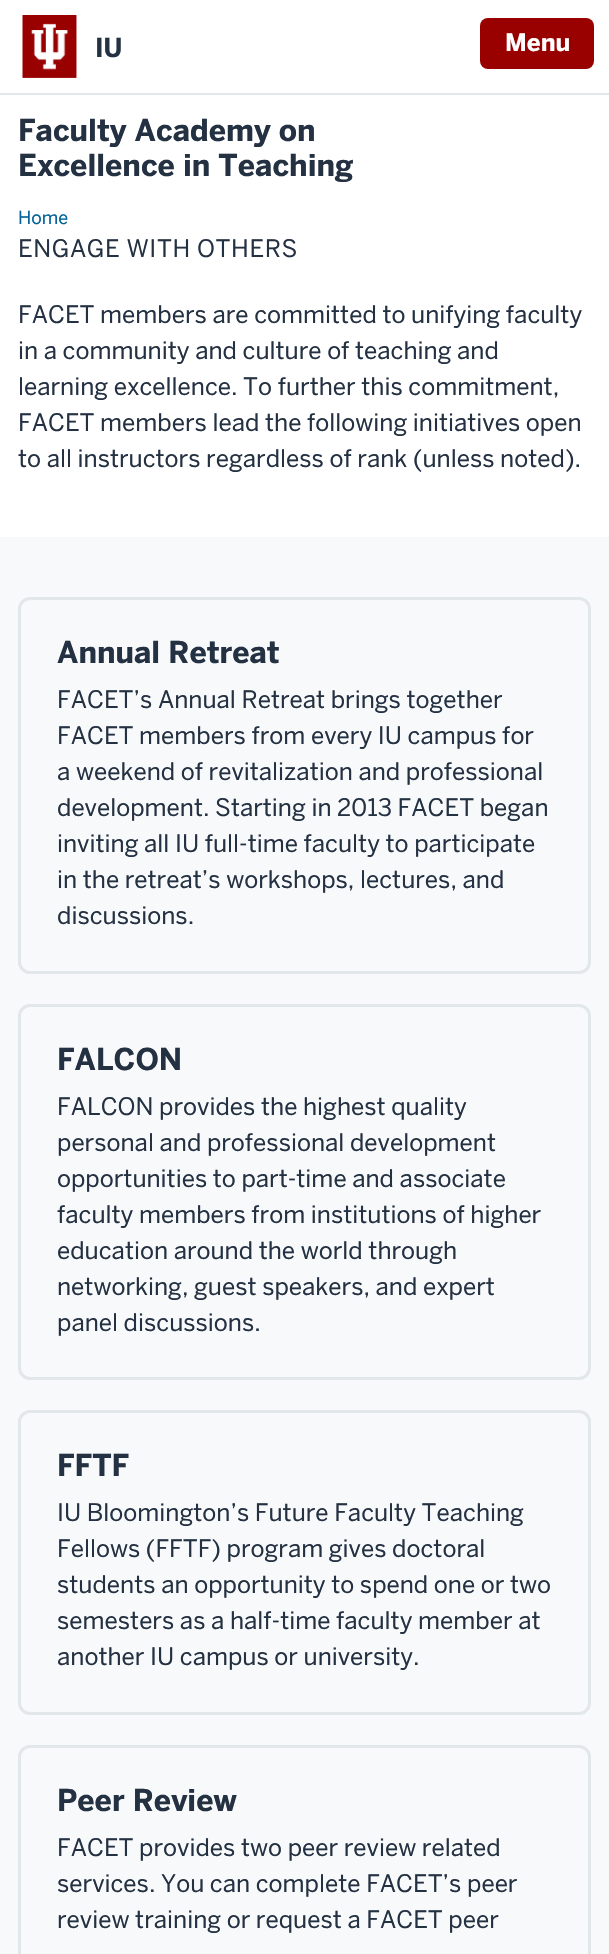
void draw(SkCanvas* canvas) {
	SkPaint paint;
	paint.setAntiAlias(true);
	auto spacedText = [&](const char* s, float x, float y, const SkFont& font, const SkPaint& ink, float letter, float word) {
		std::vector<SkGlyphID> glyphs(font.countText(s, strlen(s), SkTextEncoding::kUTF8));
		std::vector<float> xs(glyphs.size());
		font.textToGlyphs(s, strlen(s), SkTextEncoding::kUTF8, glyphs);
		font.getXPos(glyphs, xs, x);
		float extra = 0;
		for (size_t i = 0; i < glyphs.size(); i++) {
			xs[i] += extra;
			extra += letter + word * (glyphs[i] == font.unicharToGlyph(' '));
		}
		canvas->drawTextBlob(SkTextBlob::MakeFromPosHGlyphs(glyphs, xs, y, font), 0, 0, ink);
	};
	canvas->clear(0xffffffff);
	paint.setColor(0xffe2e7e9);
	canvas->drawRect(SkRect::MakeXYWH(0, 93, 609, 2), paint);
	canvas->drawImageRect(SkImages::DeferredFromEncodedData(SkData::MakeFromFileName("img1.png")), SkRect::MakeXYWH(22, 15, 55, 63), SkSamplingOptions());
	SkFont f1(fontMgr->matchFamilyStyle("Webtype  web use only", SkFontStyle::Bold()), 26);
	f1.setSubpixel(true);
	paint.setColor(0xff243142);
	canvas->drawString("IU", 95, 57, f1, paint);
	paint.setColor(0xff990000);
	canvas->drawRoundRect(SkRect::MakeXYWH(480, 18, 114, 51), 8, 8, paint);
	SkFont f2(fontMgr->matchFamilyStyle("Webtype  web use only", SkFontStyle::Bold()), 24);
	f2.setSubpixel(true);
	paint.setColor(0xffffffff);
	canvas->drawString("Menu", 505, 51, f2, paint);
	SkFont f3(fontMgr->matchFamilyStyle("Webtype  web use only", SkFontStyle::Bold()), 30);
	f3.setSubpixel(true);
	paint.setColor(0xff243142);
	canvas->drawString("Faculty Academy on", 18, 141, f3, paint);
	canvas->drawString("Excellence in Teaching", 18, 176, f3, paint);
	SkFont f4(fontMgr->matchFamilyStyle("Webtype  web use only", SkFontStyle::Normal()), 18);
	f4.setSubpixel(true);
	paint.setColor(0xff006298);
	canvas->drawString("Home", 18, 224, f4, paint);
	SkFont f5(fontMgr->matchFamilyStyle("Webtype  web use only", SkFontStyle::Normal()), 24);
	f5.setSubpixel(true);
	paint.setColor(0xff243142);
	spacedText("ENGAGE WITH OTHERS", 18, 257, f5, paint, 0.6, 0);
	canvas->drawString("FACET members are committed to unifying faculty", 18, 323, f5, paint);
	canvas->drawString("in a community and culture of teaching and", 18, 359, f5, paint);
	canvas->drawString("learning excellence. To further this commitment,", 18, 395, f5, paint);
	canvas->drawString("FACET members lead the following initiatives open", 18, 431, f5, paint);
	canvas->drawString("to all instructors regardless of rank (unless noted).", 18, 467, f5, paint);
	paint.setColor(0xfff8f9fa);
	canvas->drawRect(SkRect::MakeXYWH(0, 537, 609, 1417), paint);
	paint.setStroke(true);
	paint.setStrokeWidth(3);
	paint.setColor(0xffe2e7e9);
	canvas->drawRoundRect(SkRect::MakeXYWH(19.5, 598.5, 570, 374), 10.5, 10.5, paint);
	paint.setStroke(false);
	paint.setColor(0xff243142);
	canvas->drawString("Annual Retreat", 57, 663, f3, paint);
	canvas->drawString("FACET’s Annual Retreat brings together", 57, 708, f5, paint);
	canvas->drawString("FACET members from every IU campus for", 57, 744, f5, paint);
	canvas->drawString("a weekend of revitalization and professional", 57, 780, f5, paint);
	canvas->drawString("development. Starting in 2013 FACET began", 57, 816, f5, paint);
	canvas->drawString("inviting all IU full-time faculty to participate", 57, 852, f5, paint);
	canvas->drawString("in the retreat’s workshops, lectures, and", 57, 888, f5, paint);
	canvas->drawString("discussions.", 57, 924, f5, paint);
	paint.setStroke(true);
	paint.setColor(0xffe2e7e9);
	canvas->drawRoundRect(SkRect::MakeXYWH(19.5, 1005.5, 570, 373), 10.5, 10.5, paint);
	paint.setStroke(false);
	paint.setColor(0xff243142);
	canvas->drawString("FALCON", 57, 1070, f3, paint);
	canvas->drawString("FALCON provides the highest quality", 57, 1115, f5, paint);
	canvas->drawString("personal and professional development", 57, 1151, f5, paint);
	canvas->drawString("opportunities to part-time and associate", 57, 1187, f5, paint);
	canvas->drawString("faculty members from institutions of higher", 57, 1223, f5, paint);
	canvas->drawString("education around the world through", 57, 1259, f5, paint);
	canvas->drawString("networking, guest speakers, and expert", 57, 1295, f5, paint);
	canvas->drawString("panel discussions.", 57, 1331, f5, paint);
	paint.setStroke(true);
	paint.setColor(0xffe2e7e9);
	canvas->drawRoundRect(SkRect::MakeXYWH(19.5, 1411.5, 570, 302), 10.5, 10.5, paint);
	paint.setStroke(false);
	paint.setColor(0xff243142);
	canvas->drawString("FFTF", 57, 1476, f3, paint);
	canvas->drawString("IU Bloomington’s Future Faculty Teaching", 57, 1521, f5, paint);
	canvas->drawString("Fellows (FFTF) program gives doctoral", 57, 1557, f5, paint);
	canvas->drawString("students an opportunity to spend one or two", 57, 1593, f5, paint);
	canvas->drawString("semesters as a half-time faculty member at", 57, 1629, f5, paint);
	canvas->drawString("another IU campus or university.", 57, 1665, f5, paint);
	paint.setStroke(true);
	paint.setColor(0xffe2e7e9);
	canvas->drawRoundRect(SkRect::MakeXYWH(19.5, 1746.5, 570, 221), 10.5, 10.5, paint);
	paint.setStroke(false);
	paint.setColor(0xff243142);
	canvas->drawString("Peer Review", 57, 1811, f3, paint);
	canvas->drawString("FACET provides two peer review related", 57, 1856, f5, paint);
	canvas->drawString("services. You can complete FACET’s peer", 57, 1892, f5, paint);
	canvas->drawString("review training or request a FACET peer", 57, 1928, f5, paint);
}
